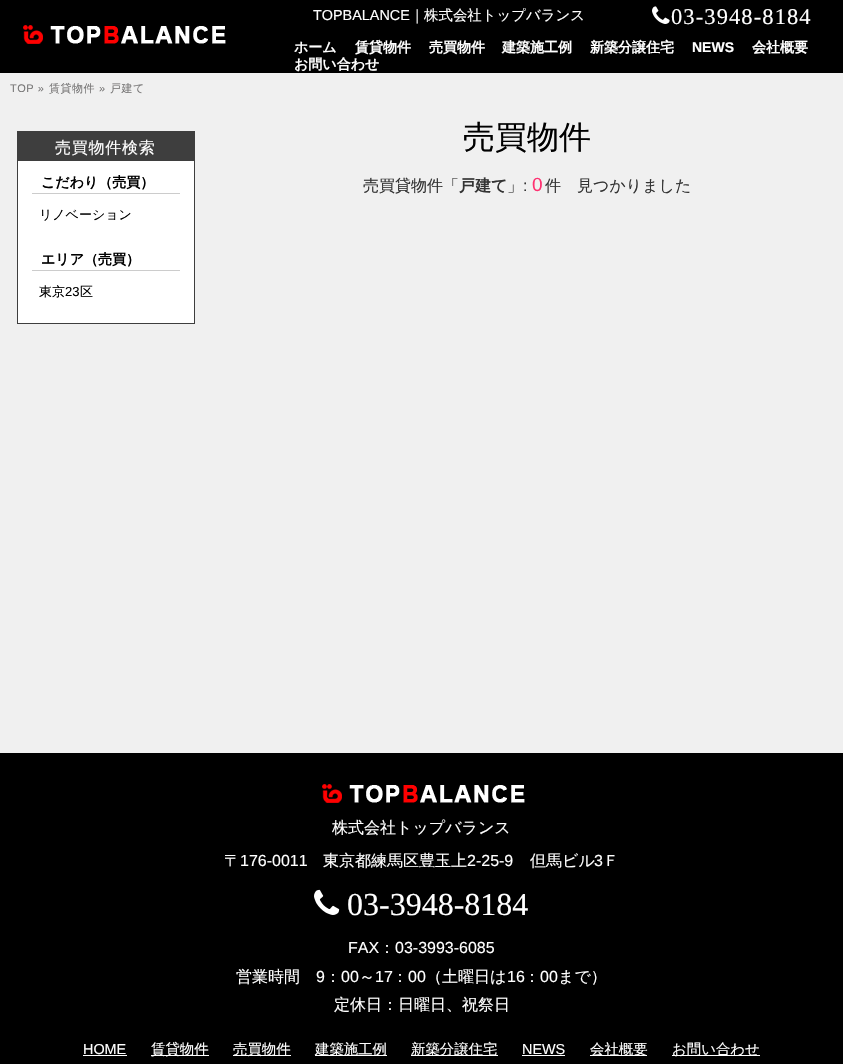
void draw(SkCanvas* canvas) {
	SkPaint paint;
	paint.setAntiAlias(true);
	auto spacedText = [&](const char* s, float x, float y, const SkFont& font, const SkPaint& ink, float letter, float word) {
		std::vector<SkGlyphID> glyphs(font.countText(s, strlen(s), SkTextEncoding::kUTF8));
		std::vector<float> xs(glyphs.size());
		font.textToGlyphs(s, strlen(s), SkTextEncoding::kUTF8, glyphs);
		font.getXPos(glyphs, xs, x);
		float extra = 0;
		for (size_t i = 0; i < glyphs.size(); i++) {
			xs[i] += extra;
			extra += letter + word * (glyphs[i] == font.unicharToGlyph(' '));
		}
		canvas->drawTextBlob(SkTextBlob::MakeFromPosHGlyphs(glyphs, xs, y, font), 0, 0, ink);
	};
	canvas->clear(0xfff0f0f0);
	paint.setColor(0xff000000);
	canvas->drawRect(SkRect::MakeXYWH(0, 0, 843, 73), paint);
	canvas->drawImageRect(SkImages::DeferredFromEncodedData(SkData::MakeFromFileName("img1.png")), SkRect::MakeXYWH(23, 25, 203, 19), SkSamplingOptions());
	SkFont f1(fontMgr->matchFamilyStyle("Liberation Sans", SkFontStyle::Normal()), 14.4);
	f1.setSubpixel(true);
	paint.setColor(0xffffffff);
	canvas->drawString("TOPBALANCE", 313, 20, f1, paint);
	SkFont f2(fontMgr->matchFamilyStyle("WenQuanYi Zen Hei", SkFontStyle(500, SkFontStyle::kNormal_Width, SkFontStyle::kUpright_Slant)), 14.4);
	f2.setSubpixel(true);
	canvas->drawString("｜株式会社トップバランス", 410, 20, f2, paint);
	canvas->drawImageRect(SkImages::DeferredFromEncodedData(SkData::MakeFromFileName("img2.png")), SkRect::MakeXYWH(652, 6, 18, 18), SkSamplingOptions());
	SkFont f3(fontMgr->matchFamilyStyle("Liberation Serif", SkFontStyle::Normal()), 22.5);
	f3.setSubpixel(true);
	spacedText("03-3948-8184", 671, 24, f3, paint, 1.1, 0);
	SkFont f4(fontMgr->matchFamilyStyle("WenQuanYi Zen Hei", SkFontStyle::Bold()), 14);
	f4.setSubpixel(true);
	canvas->drawString("ホーム", 294, 52, f4, paint);
	canvas->drawString("賃貸物件", 355, 52, f4, paint);
	canvas->drawString("売買物件", 429, 52, f4, paint);
	canvas->drawString("建築施工例", 502, 52, f4, paint);
	canvas->drawString("新築分譲住宅", 590, 52, f4, paint);
	SkFont f5(fontMgr->matchFamilyStyle("Liberation Sans", SkFontStyle::Bold()), 14);
	f5.setSubpixel(true);
	canvas->drawString("NEWS", 692, 52, f5, paint);
	canvas->drawString("会社概要", 752, 52, f4, paint);
	canvas->drawString("お問い合わせ", 294, 69, f4, paint);
	SkFont f6(fontMgr->matchFamilyStyle("Liberation Sans", SkFontStyle::Normal()), 11);
	f6.setSubpixel(true);
	paint.setColor(0xff787777);
	spacedText("TOP »", 10, 92, f6, paint, 0.5, 0);
	SkFont f7(fontMgr->matchFamilyStyle("WenQuanYi Zen Hei", SkFontStyle(500, SkFontStyle::kNormal_Width, SkFontStyle::kUpright_Slant)), 11);
	f7.setSubpixel(true);
	spacedText("賃貸物件", 49, 92, f7, paint, 0.5, 0);
	spacedText("»", 99, 92, f6, paint, 0.5, 0);
	spacedText("戸建て", 110, 92, f7, paint, 0.5, 0);
	paint.setColor(0xffffffff);
	canvas->drawRect(SkRect::MakeXYWH(18, 161, 176, 162), paint);
	paint.setStroke(true);
	paint.setStrokeWidth(1);
	paint.setColor(0xff3e3e3e);
	canvas->drawRect(SkRect::MakeXYWH(17.5, 131.5, 177, 192), paint);
	paint.setStroke(false);
	canvas->drawRect(SkRect::MakeXYWH(18, 132, 176, 29), paint);
	SkFont f8(fontMgr->matchFamilyStyle("WenQuanYi Zen Hei", SkFontStyle(500, SkFontStyle::kNormal_Width, SkFontStyle::kUpright_Slant)), 16);
	f8.setSubpixel(true);
	paint.setColor(0xffffffff);
	spacedText("売買物件検索", 55, 153, f8, paint, 0.75, 0);
	paint.setColor(0xffcccccc);
	canvas->drawRect(SkRect::MakeXYWH(32, 193, 148, 1), paint);
	paint.setColor(0xff000000);
	canvas->drawString("こだわり（売買）", 41, 187, f4, paint);
	SkFont f9(fontMgr->matchFamilyStyle("WenQuanYi Zen Hei", SkFontStyle(500, SkFontStyle::kNormal_Width, SkFontStyle::kUpright_Slant)), 13);
	f9.setSubpixel(true);
	canvas->drawString("リノベーション", 39, 219, f9, paint);
	paint.setColor(0xffcccccc);
	canvas->drawRect(SkRect::MakeXYWH(32, 270, 148, 1), paint);
	paint.setColor(0xff000000);
	canvas->drawString("エリア（売買）", 41, 264, f4, paint);
	canvas->drawString("東京", 39, 296, f9, paint);
	SkFont f10(fontMgr->matchFamilyStyle("Liberation Sans", SkFontStyle::Normal()), 13);
	f10.setSubpixel(true);
	canvas->drawString("23", 65, 296, f10, paint);
	canvas->drawString("区", 80, 296, f9, paint);
	SkFont f11(fontMgr->matchFamilyStyle("WenQuanYi Zen Hei", SkFontStyle(500, SkFontStyle::kNormal_Width, SkFontStyle::kUpright_Slant)), 32);
	f11.setSubpixel(true);
	canvas->drawString("売買物件", 463, 148, f11, paint);
	paint.setColor(0xff333333);
	canvas->drawString("売買貸物件「", 363, 191, f8, paint);
	SkFont f12(fontMgr->matchFamilyStyle("WenQuanYi Zen Hei", SkFontStyle::Bold()), 16);
	f12.setSubpixel(true);
	canvas->drawString("戸建て", 459, 191, f12, paint);
	canvas->drawString("」", 507, 191, f8, paint);
	SkFont f13(fontMgr->matchFamilyStyle("Liberation Sans", SkFontStyle::Normal()), 16);
	f13.setSubpixel(true);
	canvas->drawString(":", 523, 191, f13, paint);
	SkFont f14(fontMgr->matchFamilyStyle("Liberation Sans", SkFontStyle::Normal()), 19);
	f14.setSubpixel(true);
	paint.setColor(0xffff3171);
	spacedText("0", 532, 191, f14, paint, 2, 0);
	paint.setColor(0xff333333);
	canvas->drawString("件", 545, 191, f8, paint);
	canvas->drawString("見つかりました", 577, 191, f8, paint);
	paint.setColor(0xff000000);
	canvas->drawRect(SkRect::MakeXYWH(0, 753, 843, 311), paint);
	canvas->drawImageRect(SkImages::DeferredFromEncodedData(SkData::MakeFromFileName("img1.png")), SkRect::MakeXYWH(322, 784, 203, 19), SkSamplingOptions());
	paint.setColor(0xffffffff);
	canvas->drawString("株式会社トップバランス", 332, 833, f8, paint);
	canvas->drawString("〒", 224, 866, f8, paint);
	canvas->drawString("176-0011", 240, 866, f13, paint);
	canvas->drawString("東京都練馬区豊玉上", 323, 866, f8, paint);
	canvas->drawString("2-25-9", 467, 866, f13, paint);
	canvas->drawString("但馬ビル", 530, 866, f8, paint);
	canvas->drawString("3", 594, 866, f13, paint);
	canvas->drawString("Ｆ", 603, 866, f8, paint);
	canvas->drawImageRect(SkImages::DeferredFromEncodedData(SkData::MakeFromFileName("img3.png")), SkRect::MakeXYWH(314, 889, 26, 26), SkSamplingOptions());
	SkFont f15(fontMgr->matchFamilyStyle("Liberation Serif", SkFontStyle::Normal()), 32);
	f15.setSubpixel(true);
	canvas->drawString("03-3948-8184", 347, 915, f15, paint);
	canvas->drawString("FAX", 348, 953, f13, paint);
	canvas->drawString("：", 379, 953, f8, paint);
	canvas->drawString("03-3993-6085", 395, 953, f13, paint);
	canvas->drawString("営業時間", 236, 982, f8, paint);
	canvas->drawString("9", 316, 982, f13, paint);
	canvas->drawString("：", 325, 982, f8, paint);
	canvas->drawString("00", 341, 982, f13, paint);
	canvas->drawString("～", 359, 982, f8, paint);
	canvas->drawString("17", 375, 982, f13, paint);
	canvas->drawString("：", 392, 982, f8, paint);
	canvas->drawString("00", 408, 982, f13, paint);
	canvas->drawString("（土曜日は", 426, 982, f8, paint);
	canvas->drawString("16", 507, 982, f13, paint);
	canvas->drawString("：", 524, 982, f8, paint);
	canvas->drawString("00", 540, 982, f13, paint);
	canvas->drawString("まで）", 558, 982, f8, paint);
	canvas->drawString("定休日：日曜日、祝祭日", 334, 1010, f8, paint);
	canvas->drawString("HOME", 83, 1054, f1, paint);
	canvas->drawRect(SkRect::MakeXYWH(83, 1055, 44, 1), paint);
	canvas->drawRect(SkRect::MakeXYWH(151, 1055, 58, 1), paint);
	canvas->drawString("賃貸物件", 151, 1054, f2, paint);
	canvas->drawRect(SkRect::MakeXYWH(233, 1055, 58, 1), paint);
	canvas->drawString("売買物件", 233, 1054, f2, paint);
	canvas->drawRect(SkRect::MakeXYWH(315, 1055, 72, 1), paint);
	canvas->drawString("建築施工例", 315, 1054, f2, paint);
	canvas->drawRect(SkRect::MakeXYWH(411, 1055, 87, 1), paint);
	canvas->drawString("新築分譲住宅", 411, 1054, f2, paint);
	canvas->drawString("NEWS", 522, 1054, f1, paint);
	canvas->drawRect(SkRect::MakeXYWH(522, 1055, 43, 1), paint);
	canvas->drawRect(SkRect::MakeXYWH(590, 1055, 57, 1), paint);
	canvas->drawString("会社概要", 590, 1054, f2, paint);
	canvas->drawRect(SkRect::MakeXYWH(672, 1055, 88, 1), paint);
	canvas->drawString("お問い合わせ", 672, 1054, f2, paint);
}
